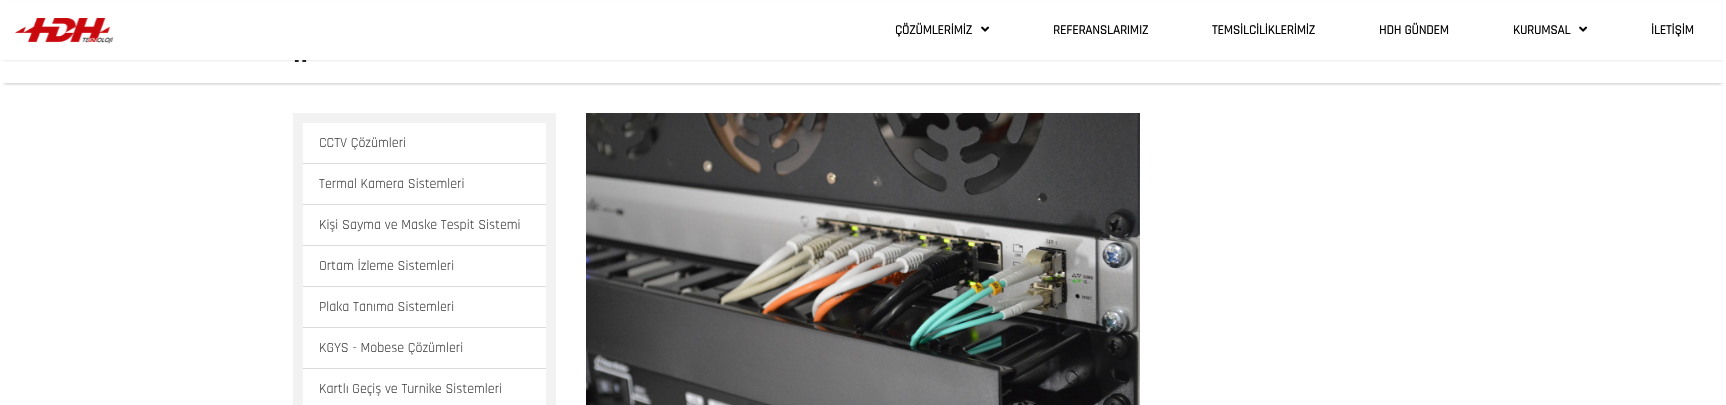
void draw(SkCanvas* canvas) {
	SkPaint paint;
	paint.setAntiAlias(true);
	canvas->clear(0xffffffff);
	canvas->save();
	canvas->clipRect(SkRect::MakeXYWH(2, 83, 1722, 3));
	paint.setColor(0x54000000);
	paint.setMaskFilter(SkMaskFilter::MakeBlur(kNormal_SkBlurStyle, 2));
	canvas->drawRect(SkRect::MakeXYWH(4, 41, 1718, 42), paint);
	paint.setMaskFilter(nullptr);
	canvas->restore();
	canvas->drawImageRect(SkImages::DeferredFromEncodedData(SkData::MakeFromFileName("img3.png")), SkRect::MakeXYWH(294, 60, 13, 2), SkSamplingOptions());
	paint.setColor(0x59000000);
	paint.setMaskFilter(SkMaskFilter::MakeBlur(kNormal_SkBlurStyle, 1.5));
	canvas->drawRect(SkRect::MakeXYWH(3, 5, 1720, 54), paint);
	paint.setMaskFilter(nullptr);
	paint.setColor(0xffffffff);
	canvas->drawRect(SkRect::MakeXYWH(0, 2, 1726, 58), paint);
	canvas->drawImageRect(SkImages::DeferredFromEncodedData(SkData::MakeFromFileName("img1.png")), SkRect::MakeXYWH(15, 18, 99, 26), SkSamplingOptions());
	SkFont f1(fontMgr->matchFamilyStyle("Rajdhani", SkFontStyle::Bold()), 13);
	f1.setSubpixel(true);
	paint.setColor(0xff000000);
	canvas->drawString("ÇÖZÜMLERİMİZ", 895, 34, f1, paint);
	canvas->drawImageRect(SkImages::DeferredFromEncodedData(SkData::MakeFromFileName("img2.png")), SkRect::MakeXYWH(981, 26, 9, 6), SkSamplingOptions());
	canvas->drawString("REFERANSLARIMIZ", 1053, 34, f1, paint);
	canvas->drawString("TEMSİLCİLİKLERİMİZ", 1212, 34, f1, paint);
	canvas->drawString("HDH GÜNDEM", 1379, 34, f1, paint);
	canvas->drawString("KURUMSAL", 1513, 34, f1, paint);
	canvas->drawImageRect(SkImages::DeferredFromEncodedData(SkData::MakeFromFileName("img2.png")), SkRect::MakeXYWH(1579, 26, 9, 6), SkSamplingOptions());
	canvas->drawString("İLETİŞİM", 1651, 34, f1, paint);
	paint.setColor(0xfff2f2f2);
	canvas->drawRect(SkRect::MakeXYWH(293, 113, 263, 292), paint);
	paint.setColor(0xffffffff);
	canvas->drawRect(SkRect::MakeXYWH(303, 123, 243, 40), paint);
	paint.setColor(0xffdbdbdb);
	canvas->drawRect(SkRect::MakeXYWH(303, 163, 243, 1), paint);
	SkFont f2(fontMgr->matchFamilyStyle("Rajdhani", SkFontStyle::Normal()), 14);
	f2.setSubpixel(true);
	paint.setColor(0xff464646);
	canvas->drawString("CCTV Çözümleri", 319, 147, f2, paint);
	paint.setColor(0xffffffff);
	canvas->drawRect(SkRect::MakeXYWH(303, 164, 243, 40), paint);
	paint.setColor(0xffdbdbdb);
	canvas->drawRect(SkRect::MakeXYWH(303, 204, 243, 1), paint);
	paint.setColor(0xff464646);
	canvas->drawString("Termal Kamera Sistemleri", 319, 188, f2, paint);
	paint.setColor(0xffffffff);
	canvas->drawRect(SkRect::MakeXYWH(303, 205, 243, 40), paint);
	paint.setColor(0xffdbdbdb);
	canvas->drawRect(SkRect::MakeXYWH(303, 245, 243, 1), paint);
	paint.setColor(0xff464646);
	canvas->drawString("Kişi Sayma ve Maske Tespit Sistemi", 319, 229, f2, paint);
	paint.setColor(0xffffffff);
	canvas->drawRect(SkRect::MakeXYWH(303, 246, 243, 40), paint);
	paint.setColor(0xffdbdbdb);
	canvas->drawRect(SkRect::MakeXYWH(303, 286, 243, 1), paint);
	paint.setColor(0xff464646);
	canvas->drawString("Ortam İzleme Sistemleri", 319, 270, f2, paint);
	paint.setColor(0xffffffff);
	canvas->drawRect(SkRect::MakeXYWH(303, 287, 243, 40), paint);
	paint.setColor(0xffdbdbdb);
	canvas->drawRect(SkRect::MakeXYWH(303, 327, 243, 1), paint);
	paint.setColor(0xff464646);
	canvas->drawString("Plaka Tanıma Sistemleri", 319, 311, f2, paint);
	paint.setColor(0xffffffff);
	canvas->drawRect(SkRect::MakeXYWH(303, 328, 243, 40), paint);
	paint.setColor(0xffdbdbdb);
	canvas->drawRect(SkRect::MakeXYWH(303, 368, 243, 1), paint);
	paint.setColor(0xff464646);
	canvas->drawString("KGYS - Mobese Çözümleri", 319, 352, f2, paint);
	paint.setColor(0xffffffff);
	canvas->drawRect(SkRect::MakeXYWH(303, 369, 243, 36), paint);
	paint.setColor(0xff464646);
	canvas->drawString("Kartlı Geçiş ve Turnike Sistemleri", 319, 393, f2, paint);
	canvas->drawImageRect(SkImages::DeferredFromEncodedData(SkData::MakeFromFileName("img4.png")), SkRect::MakeXYWH(586, 113, 554, 292), SkSamplingOptions());
}
